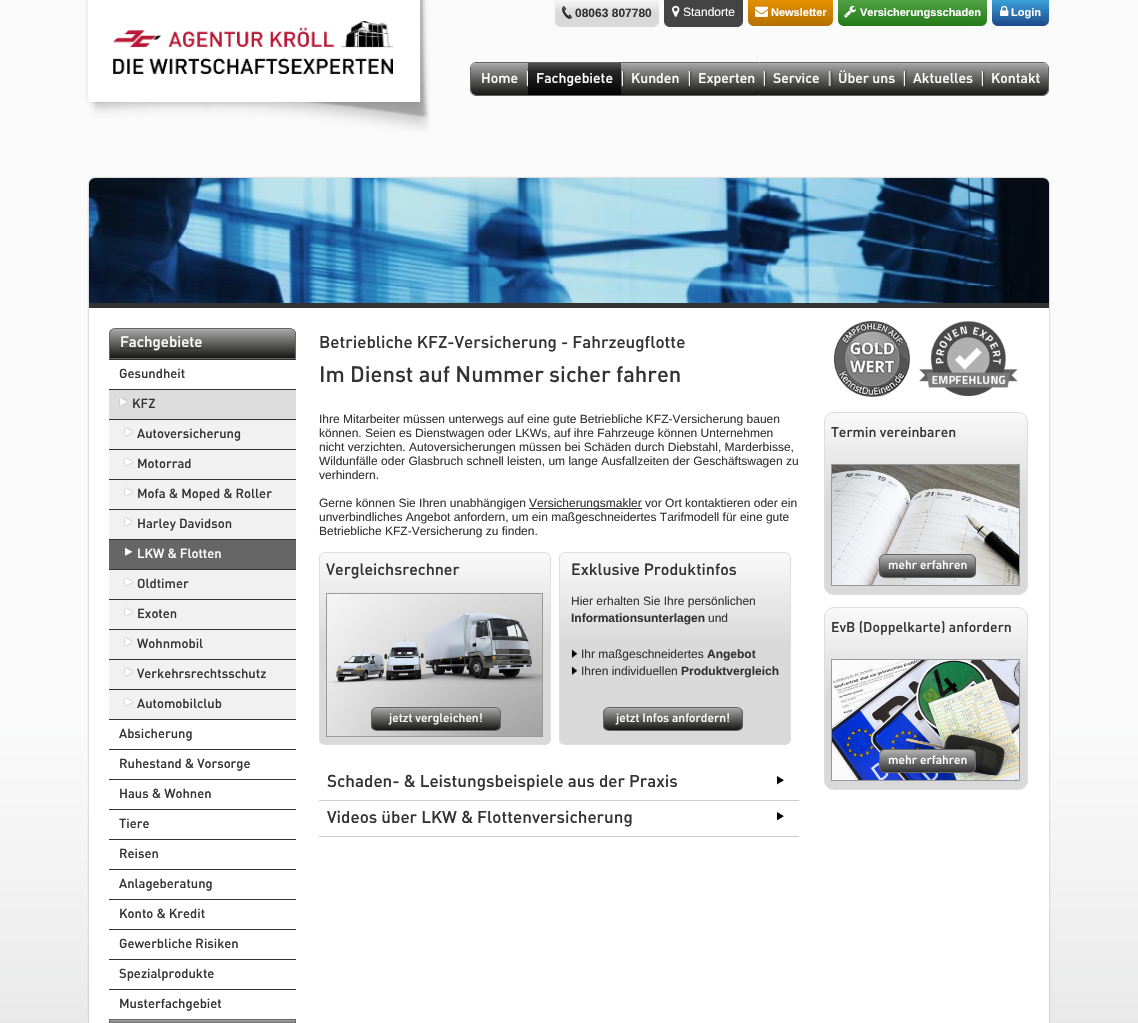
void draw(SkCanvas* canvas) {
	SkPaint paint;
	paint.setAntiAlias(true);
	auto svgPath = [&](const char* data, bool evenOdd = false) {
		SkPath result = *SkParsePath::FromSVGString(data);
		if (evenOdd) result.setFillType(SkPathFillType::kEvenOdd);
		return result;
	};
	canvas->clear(0xffffffff);
	canvas->drawImageRect(SkImages::DeferredFromEncodedData(SkData::MakeFromFileName("img1.png")), SkRect::MakeXYWH(0, 0, 1138, 1023), SkSamplingOptions());
	canvas->drawImageRect(SkImages::DeferredFromEncodedData(SkData::MakeFromFileName("img2.png")), SkRect::MakeXYWH(85, 0, 345, 131), SkSamplingOptions());
	canvas->drawImageRect(SkImages::DeferredFromEncodedData(SkData::MakeFromFileName("img3.png")), SkRect::MakeXYWH(113, 21, 280, 53), SkSamplingOptions());
	{
		const SkColor colors[] = {0xfff9f9f9, 0xffdad9da, 0xffdad9da};
		const float stops[] = {0, 0.48, 1};
		const SkPoint ends[] = {{607, -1}, {607, 27}};
		paint.setShader(SkGradientShader::MakeLinear(ends, colors, stops, 3, SkTileMode::kClamp));
		paint.setAlpha(255);
	}
	canvas->drawPath(svgPath("M555-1H659V21C659 24.5 656.5 27 653 27H561C557.5 27 555 24.5 555 21Z"), paint);
	canvas->drawImageRect(SkImages::DeferredFromEncodedData(SkData::MakeFromFileName("img4.png")), SkRect::MakeXYWH(562, 6, 10, 13), SkSamplingOptions());
	SkFont f1(fontMgr->matchFamilyStyle("Liberation Sans", SkFontStyle::Bold()), 12);
	f1.setSubpixel(true);
	paint.setShader(nullptr);
	paint.setColor(0xff333333);
	canvas->drawString("08063 807780", 575, 17, f1, paint);
	paint.setColor(0xff444444);
	canvas->drawPath(svgPath("M664-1H743V21C743 24.5 740.5 27 737 27H670C666.5 27 664 24.5 664 21Z"), paint);
	canvas->drawImageRect(SkImages::DeferredFromEncodedData(SkData::MakeFromFileName("img5.png")), SkRect::MakeXYWH(672, 5, 8, 12), SkSamplingOptions());
	SkFont f2(fontMgr->matchFamilyStyle("Liberation Sans", SkFontStyle::Normal()), 12);
	f2.setSubpixel(true);
	paint.setColor(0xffffffff);
	canvas->drawString("Standorte", 683, 16, f2, paint);
	{
		const SkColor colors[] = {0xffe99300, 0xffb37000};
		const float stops[] = {0, 1};
		const SkPoint ends[] = {{758, -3}, {758, 26}};
		paint.setShader(SkGradientShader::MakeLinear(ends, colors, stops, 2, SkTileMode::kClamp));
		paint.setAlpha(255);
	}
	canvas->drawPath(svgPath("M748-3H768V26H754C750.5 26 748 23.5 748 20Z"), paint);
	{
		const SkColor colors[] = {0xffe99300, 0xffb37000};
		const float stops[] = {0, 1};
		const SkPoint ends[] = {{801, -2}, {801, 26}};
		paint.setShader(SkGradientShader::MakeLinear(ends, colors, stops, 2, SkTileMode::kClamp));
		paint.setAlpha(255);
	}
	canvas->drawPath(svgPath("M768-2H833V20C833 23.5 830.5 26 827 26H768Z"), paint);
	canvas->drawImageRect(SkImages::DeferredFromEncodedData(SkData::MakeFromFileName("img6.png")), SkRect::MakeXYWH(755, 6, 13, 11), SkSamplingOptions());
	SkFont f3(fontMgr->matchFamilyStyle("Liberation Sans", SkFontStyle::Bold()), 11);
	f3.setSubpixel(true);
	paint.setShader(nullptr);
	paint.setColor(0xffffffff);
	canvas->drawString("Newsletter", 771, 16, f3, paint);
	{
		const SkColor colors[] = {0xff55a548, 0xff247a19};
		const float stops[] = {0, 1};
		const SkPoint ends[] = {{848, -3}, {848, 26}};
		paint.setShader(SkGradientShader::MakeLinear(ends, colors, stops, 2, SkTileMode::kClamp));
		paint.setAlpha(255);
	}
	canvas->drawPath(svgPath("M838-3H857V26H844C840.5 26 838 23.5 838 20Z"), paint);
	{
		const SkColor colors[] = {0xff55a548, 0xff247a19};
		const float stops[] = {0, 1};
		const SkPoint ends[] = {{922, -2}, {922, 26}};
		paint.setShader(SkGradientShader::MakeLinear(ends, colors, stops, 2, SkTileMode::kClamp));
		paint.setAlpha(255);
	}
	canvas->drawPath(svgPath("M857-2H987V20C987 23.5 984.5 26 981 26H857Z"), paint);
	canvas->drawImageRect(SkImages::DeferredFromEncodedData(SkData::MakeFromFileName("img7.png")), SkRect::MakeXYWH(844, 5, 12, 13), SkSamplingOptions());
	paint.setShader(nullptr);
	paint.setColor(0xffffffff);
	canvas->drawString("Versicherungsschaden", 860, 16, f3, paint);
	{
		const SkColor colors[] = {0xff3da9e0, 0xff1d488a};
		const float stops[] = {0, 1};
		const SkPoint ends[] = {{1000, -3}, {1000, 26}};
		paint.setShader(SkGradientShader::MakeLinear(ends, colors, stops, 2, SkTileMode::kClamp));
		paint.setAlpha(255);
	}
	canvas->drawPath(svgPath("M992-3H1008V26H998C994.5 26 992 23.5 992 20Z"), paint);
	{
		const SkColor colors[] = {0xff3da9e0, 0xff1d488a};
		const float stops[] = {0, 1};
		const SkPoint ends[] = {{1029, -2}, {1029, 26}};
		paint.setShader(SkGradientShader::MakeLinear(ends, colors, stops, 2, SkTileMode::kClamp));
		paint.setAlpha(255);
	}
	canvas->drawPath(svgPath("M1008-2H1049V20C1049 23.5 1046.5 26 1043 26H1008Z"), paint);
	canvas->drawImageRect(SkImages::DeferredFromEncodedData(SkData::MakeFromFileName("img8.png")), SkRect::MakeXYWH(1000, 5, 9, 11), SkSamplingOptions());
	paint.setShader(nullptr);
	paint.setColor(0xffffffff);
	canvas->drawString("Login", 1011, 16, f3, paint);
	paint.setStroke(true);
	paint.setStrokeWidth(1);
	paint.setColor(0xff646464);
	canvas->drawRoundRect(SkRect::MakeXYWH(470.5, 62.5, 578, 33), 5.5, 5.5, paint);
	paint.setStroke(false);
	{
		const SkColor colors[] = {0xffb4b4b4, 0xffa0a0a0, 0xff161614};
		const float stops[] = {0, 0.05, 1};
		const SkPoint ends[] = {{760, 63}, {760, 95}};
		paint.setShader(SkGradientShader::MakeLinear(ends, colors, stops, 3, SkTileMode::kClamp));
		paint.setAlpha(255);
	}
	canvas->drawRoundRect(SkRect::MakeXYWH(471, 63, 577, 32), 5, 5, paint);
	SkFont f4(fontMgr->matchFamilyStyle("DIN", SkFontStyle(500, SkFontStyle::kNormal_Width, SkFontStyle::kUpright_Slant)), 14);
	f4.setSubpixel(true);
	paint.setShader(nullptr);
	paint.setColor(0xffffffff);
	canvas->drawString("Home", 481, 83, f4, paint);
	canvas->drawImageRect(SkImages::DeferredFromEncodedData(SkData::MakeFromFileName("img9.png")), SkRect::MakeXYWH(526, 70, 2, 16), SkSamplingOptions());
	{
		const SkColor colors[] = {0xff525252, 0xff272727, 0xff020202};
		const float stops[] = {0, 0.25, 1};
		const SkPoint ends[] = {{575, 63}, {575, 95}};
		paint.setShader(SkGradientShader::MakeLinear(ends, colors, stops, 3, SkTileMode::kClamp));
		paint.setAlpha(255);
	}
	canvas->drawRect(SkRect::MakeXYWH(528, 63, 93, 32), paint);
	paint.setShader(nullptr);
	paint.setColor(0xffffffff);
	canvas->drawString("Fachgebiete", 536, 83, f4, paint);
	canvas->drawImageRect(SkImages::DeferredFromEncodedData(SkData::MakeFromFileName("img10.png")), SkRect::MakeXYWH(621, 70, 4, 16), SkSamplingOptions());
	canvas->drawString("Kunden", 631, 83, f4, paint);
	canvas->drawImageRect(SkImages::DeferredFromEncodedData(SkData::MakeFromFileName("img10.png")), SkRect::MakeXYWH(688, 70, 4, 16), SkSamplingOptions());
	canvas->drawString("Experten", 698, 83, f4, paint);
	canvas->drawImageRect(SkImages::DeferredFromEncodedData(SkData::MakeFromFileName("img10.png")), SkRect::MakeXYWH(763, 70, 4, 16), SkSamplingOptions());
	canvas->drawString("Service", 773, 83, f4, paint);
	canvas->drawImageRect(SkImages::DeferredFromEncodedData(SkData::MakeFromFileName("img11.png")), SkRect::MakeXYWH(828, 70, 5, 16), SkSamplingOptions());
	canvas->drawString("Über uns", 838, 83, f4, paint);
	canvas->drawImageRect(SkImages::DeferredFromEncodedData(SkData::MakeFromFileName("img10.png")), SkRect::MakeXYWH(903, 70, 4, 16), SkSamplingOptions());
	canvas->drawString("Aktuelles", 913, 83, f4, paint);
	canvas->drawImageRect(SkImages::DeferredFromEncodedData(SkData::MakeFromFileName("img10.png")), SkRect::MakeXYWH(981, 70, 4, 16), SkSamplingOptions());
	canvas->drawString("Kontakt", 991, 83, f4, paint);
	paint.setColor(0xff999999);
	paint.setMaskFilter(SkMaskFilter::MakeBlur(kNormal_SkBlurStyle, 1));
	canvas->drawRoundRect(SkRect::MakeXYWH(89, 178, 960, 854), 6, 6, paint);
	paint.setMaskFilter(nullptr);
	paint.setColor(0xffffffff);
	canvas->drawPath(svgPath("M95 178H1043C1046.5 178 1049 180.5 1049 184V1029H89V184C89 180.5 91.5 178 95 178Z"), paint);
	paint.setColor(0xff333333);
	canvas->drawRect(SkRect::MakeXYWH(89, 303, 960, 5), paint);
	canvas->drawImageRect(SkImages::DeferredFromEncodedData(SkData::MakeFromFileName("img12.png")), SkRect::MakeXYWH(89, 178, 960, 125), SkSamplingOptions());
	canvas->save();
	canvas->clipPath(svgPath("M115 328H290C293.5 328 296 330.5 296 334V359H109V334C109 330.5 111.5 328 115 328Z"), true);
	{
		const SkColor colors[] = {0xffb4b4b4, 0xffa0a0a0, 0xff161614};
		const float stops[] = {0, 0.05, 1};
		const SkPoint ends[] = {{203, 329}, {203, 358}};
		paint.setShader(SkGradientShader::MakeLinear(ends, colors, stops, 3, SkTileMode::kClamp));
		paint.setAlpha(255);
	}
	canvas->drawRect(SkRect::MakeXYWH(109, 329, 187, 29), paint);
	canvas->restore();
	paint.setStroke(true);
	paint.setShader(nullptr);
	paint.setColor(0xff666666);
	canvas->drawPath(svgPath("M115 328.5H290C293 328.5 295.5 331 295.5 334V358.5H109.5V334C109.5 331 112 328.5 115 328.5Z"), paint);
	paint.setStroke(false);
	paint.setColor(0xff333333);
	canvas->drawRect(SkRect::MakeXYWH(120, 348, 82, 1), paint);
	SkFont f5(fontMgr->matchFamilyStyle("DIN", SkFontStyle(500, SkFontStyle::kNormal_Width, SkFontStyle::kUpright_Slant)), 15);
	f5.setSubpixel(true);
	paint.setColor(0xffffffff);
	canvas->drawString("Fachgebiete", 120, 347, f5, paint);
	paint.setColor(0xff333333);
	canvas->drawRect(SkRect::MakeXYWH(109, 359, 187, 1), paint);
	SkFont f6(fontMgr->matchFamilyStyle("DIN", SkFontStyle(500, SkFontStyle::kNormal_Width, SkFontStyle::kUpright_Slant)), 13);
	f6.setSubpixel(true);
	canvas->drawString("Gesundheit", 119, 378, f6, paint);
	canvas->drawRect(SkRect::MakeXYWH(109, 389, 187, 1), paint);
	paint.setColor(0xffdddddd);
	canvas->drawRect(SkRect::MakeXYWH(109, 390, 187, 29), paint);
	canvas->drawImageRect(SkImages::DeferredFromEncodedData(SkData::MakeFromFileName("img13.png")), SkRect::MakeXYWH(119, 397, 9, 10), SkSamplingOptions());
	paint.setColor(0xff333333);
	canvas->drawString("KFZ", 132, 408, f6, paint);
	canvas->drawRect(SkRect::MakeXYWH(109, 419, 187, 1), paint);
	paint.setColor(0xfff2f1f1);
	canvas->drawRect(SkRect::MakeXYWH(109, 420, 187, 29), paint);
	canvas->drawImageRect(SkImages::DeferredFromEncodedData(SkData::MakeFromFileName("img14.png")), SkRect::MakeXYWH(124, 427, 9, 10), SkSamplingOptions());
	paint.setColor(0xff333333);
	canvas->drawString("Autoversicherung", 137, 438, f6, paint);
	canvas->drawRect(SkRect::MakeXYWH(109, 449, 187, 1), paint);
	paint.setColor(0xfff2f1f1);
	canvas->drawRect(SkRect::MakeXYWH(109, 450, 187, 29), paint);
	canvas->drawImageRect(SkImages::DeferredFromEncodedData(SkData::MakeFromFileName("img14.png")), SkRect::MakeXYWH(124, 457, 9, 10), SkSamplingOptions());
	paint.setColor(0xff333333);
	canvas->drawString("Motorrad", 137, 468, f6, paint);
	canvas->drawRect(SkRect::MakeXYWH(109, 479, 187, 1), paint);
	paint.setColor(0xfff2f1f1);
	canvas->drawRect(SkRect::MakeXYWH(109, 480, 187, 29), paint);
	canvas->drawImageRect(SkImages::DeferredFromEncodedData(SkData::MakeFromFileName("img14.png")), SkRect::MakeXYWH(124, 487, 9, 10), SkSamplingOptions());
	paint.setColor(0xff333333);
	canvas->drawString("Mofa & Moped & Roller", 137, 498, f6, paint);
	canvas->drawRect(SkRect::MakeXYWH(109, 509, 187, 1), paint);
	paint.setColor(0xfff2f1f1);
	canvas->drawRect(SkRect::MakeXYWH(109, 510, 187, 29), paint);
	canvas->drawImageRect(SkImages::DeferredFromEncodedData(SkData::MakeFromFileName("img14.png")), SkRect::MakeXYWH(124, 517, 9, 10), SkSamplingOptions());
	paint.setColor(0xff333333);
	canvas->drawString("Harley Davidson", 137, 528, f6, paint);
	canvas->drawRect(SkRect::MakeXYWH(109, 539, 187, 1), paint);
	paint.setColor(0xff666666);
	canvas->drawRect(SkRect::MakeXYWH(109, 540, 187, 29), paint);
	canvas->drawImageRect(SkImages::DeferredFromEncodedData(SkData::MakeFromFileName("img15.png")), SkRect::MakeXYWH(124, 547, 9, 9), SkSamplingOptions());
	paint.setColor(0xffffffff);
	canvas->drawString("LKW & Flotten", 137, 558, f6, paint);
	paint.setColor(0xff333333);
	canvas->drawRect(SkRect::MakeXYWH(109, 569, 187, 1), paint);
	paint.setColor(0xfff2f1f1);
	canvas->drawRect(SkRect::MakeXYWH(109, 570, 187, 29), paint);
	canvas->drawImageRect(SkImages::DeferredFromEncodedData(SkData::MakeFromFileName("img14.png")), SkRect::MakeXYWH(124, 577, 9, 10), SkSamplingOptions());
	paint.setColor(0xff333333);
	canvas->drawString("Oldtimer", 137, 588, f6, paint);
	canvas->drawRect(SkRect::MakeXYWH(109, 599, 187, 1), paint);
	paint.setColor(0xfff2f1f1);
	canvas->drawRect(SkRect::MakeXYWH(109, 600, 187, 29), paint);
	canvas->drawImageRect(SkImages::DeferredFromEncodedData(SkData::MakeFromFileName("img14.png")), SkRect::MakeXYWH(124, 607, 9, 10), SkSamplingOptions());
	paint.setColor(0xff333333);
	canvas->drawString("Exoten", 137, 618, f6, paint);
	canvas->drawRect(SkRect::MakeXYWH(109, 629, 187, 1), paint);
	paint.setColor(0xfff2f1f1);
	canvas->drawRect(SkRect::MakeXYWH(109, 630, 187, 29), paint);
	canvas->drawImageRect(SkImages::DeferredFromEncodedData(SkData::MakeFromFileName("img14.png")), SkRect::MakeXYWH(124, 637, 9, 10), SkSamplingOptions());
	paint.setColor(0xff333333);
	canvas->drawString("Wohnmobil", 137, 648, f6, paint);
	canvas->drawRect(SkRect::MakeXYWH(109, 659, 187, 1), paint);
	paint.setColor(0xfff2f1f1);
	canvas->drawRect(SkRect::MakeXYWH(109, 660, 187, 29), paint);
	canvas->drawImageRect(SkImages::DeferredFromEncodedData(SkData::MakeFromFileName("img14.png")), SkRect::MakeXYWH(124, 667, 9, 10), SkSamplingOptions());
	paint.setColor(0xff333333);
	canvas->drawString("Verkehrsrechtsschutz", 137, 678, f6, paint);
	canvas->drawRect(SkRect::MakeXYWH(109, 689, 187, 1), paint);
	paint.setColor(0xfff2f1f1);
	canvas->drawRect(SkRect::MakeXYWH(109, 690, 187, 29), paint);
	canvas->drawImageRect(SkImages::DeferredFromEncodedData(SkData::MakeFromFileName("img14.png")), SkRect::MakeXYWH(124, 697, 9, 10), SkSamplingOptions());
	paint.setColor(0xff333333);
	canvas->drawString("Automobilclub", 137, 708, f6, paint);
	canvas->drawRect(SkRect::MakeXYWH(109, 719, 187, 1), paint);
	canvas->drawString("Absicherung", 119, 738, f6, paint);
	canvas->drawRect(SkRect::MakeXYWH(109, 749, 187, 1), paint);
	canvas->drawString("Ruhestand & Vorsorge", 119, 768, f6, paint);
	canvas->drawRect(SkRect::MakeXYWH(109, 779, 187, 1), paint);
	canvas->drawString("Haus & Wohnen", 119, 798, f6, paint);
	canvas->drawRect(SkRect::MakeXYWH(109, 809, 187, 1), paint);
	canvas->drawString("Tiere", 119, 828, f6, paint);
	canvas->drawRect(SkRect::MakeXYWH(109, 839, 187, 1), paint);
	canvas->drawString("Reisen", 119, 858, f6, paint);
	canvas->drawRect(SkRect::MakeXYWH(109, 869, 187, 1), paint);
	canvas->drawString("Anlageberatung", 119, 888, f6, paint);
	canvas->drawRect(SkRect::MakeXYWH(109, 899, 187, 1), paint);
	canvas->drawString("Konto & Kredit", 119, 918, f6, paint);
	canvas->drawRect(SkRect::MakeXYWH(109, 929, 187, 1), paint);
	canvas->drawString("Gewerbliche Risiken", 119, 948, f6, paint);
	canvas->drawRect(SkRect::MakeXYWH(109, 959, 187, 1), paint);
	canvas->drawString("Spezialprodukte", 119, 978, f6, paint);
	canvas->drawRect(SkRect::MakeXYWH(109, 989, 187, 1), paint);
	canvas->drawString("Musterfachgebiet", 119, 1008, f6, paint);
	{
		const SkColor colors[] = {0xffb4b4b4, 0xffa0a0a0, 0xff161614};
		const float stops[] = {0, 0.05, 1};
		const SkPoint ends[] = {{203, 1020}, {203, 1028}};
		paint.setShader(SkGradientShader::MakeLinear(ends, colors, stops, 3, SkTileMode::kClamp));
		paint.setAlpha(255);
	}
	canvas->drawRect(SkRect::MakeXYWH(109, 1020, 187, 3), paint);
	paint.setStroke(true);
	paint.setShader(nullptr);
	paint.setColor(0xff666666);
	canvas->drawRect(SkRect::MakeXYWH(109.5, 1019.5, 186, 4), paint);
	SkFont f7(fontMgr->matchFamilyStyle("DIN", SkFontStyle(500, SkFontStyle::kNormal_Width, SkFontStyle::kUpright_Slant)), 17);
	f7.setSubpixel(true);
	paint.setStroke(false);
	paint.setColor(0xff333333);
	canvas->drawString("Betriebliche KFZ-Versicherung - Fahrzeugflotte", 319, 348, f7, paint);
	SkFont f8(fontMgr->matchFamilyStyle("DIN", SkFontStyle(500, SkFontStyle::kNormal_Width, SkFontStyle::kUpright_Slant)), 22);
	f8.setSubpixel(true);
	canvas->drawString("Im Dienst auf Nummer sicher fahren", 319, 382, f8, paint);
	canvas->drawImageRect(SkImages::DeferredFromEncodedData(SkData::MakeFromFileName("img16.png")), SkRect::MakeXYWH(834, 321, 76, 76), SkSamplingOptions());
	canvas->drawImageRect(SkImages::DeferredFromEncodedData(SkData::MakeFromFileName("img17.png")), SkRect::MakeXYWH(919, 321, 99, 75), SkSamplingOptions());
	canvas->drawString("Ihre Mitarbeiter müssen unterwegs auf eine gute Betriebliche KFZ-Versicherung bauen", 319, 423, f2, paint);
	canvas->drawString("können. Seien es Dienstwagen oder LKWs, auf ihre Fahrzeuge können Unternehmen", 319, 437, f2, paint);
	canvas->drawString("nicht verzichten. Autoversicherungen müssen bei Schäden durch Diebstahl, Marderbisse,", 319, 451, f2, paint);
	canvas->drawString("Wildunfälle oder Glasbruch schnell leisten, um lange Ausfallzeiten der Geschäftswagen zu", 319, 465, f2, paint);
	canvas->drawString("verhindern.", 319, 479, f2, paint);
	canvas->drawString("Gerne können Sie Ihren unabhängigen", 319, 507, f2, paint);
	canvas->drawRect(SkRect::MakeXYWH(529, 508, 113, 1), paint);
	canvas->drawString("Versicherungsmakler vor Ort kontaktieren oder ein", 529, 507, f2, paint);
	canvas->drawString("unverbindliches Angebot anfordern, um ein maßgeschneidertes Tarifmodell für eine gute", 319, 521, f2, paint);
	canvas->drawString("Betriebliche KFZ-Versicherung zu finden.", 319, 535, f2, paint);
	canvas->save();
	canvas->clipPath(svgPath("M325 552H545C548.5 552 551 554.5 551 558V739C551 742.5 548.5 745 545 745H325C321.5 745 319 742.5 319 739V558C319 554.5 321.5 552 325 552Z"), true);
	{
		const SkColor colors[] = {0xfff9f9f9, 0xffdad9da, 0xffdad9da};
		const float stops[] = {0, 0.48, 1};
		const SkPoint ends[] = {{435, 553}, {435, 744}};
		paint.setShader(SkGradientShader::MakeLinear(ends, colors, stops, 3, SkTileMode::kClamp));
		paint.setAlpha(255);
	}
	canvas->drawRect(SkRect::MakeXYWH(319, 553, 232, 191), paint);
	canvas->restore();
	paint.setStroke(true);
	paint.setShader(nullptr);
	paint.setColor(0xffdfdcdd);
	canvas->drawRoundRect(SkRect::MakeXYWH(319.5, 552.5, 231, 192), 5.5, 5.5, paint);
	SkFont f9(fontMgr->matchFamilyStyle("DIN", SkFontStyle(500, SkFontStyle::kNormal_Width, SkFontStyle::kUpright_Slant)), 16);
	f9.setSubpixel(true);
	paint.setStroke(false);
	paint.setColor(0xff333333);
	canvas->drawString("Vergleichsrechner", 326, 575, f9, paint);
	paint.setStroke(true);
	paint.setColor(0xff999999);
	canvas->drawRect(SkRect::MakeXYWH(326.5, 593.5, 216, 143), paint);
	canvas->drawImageRect(SkImages::DeferredFromEncodedData(SkData::MakeFromFileName("img18.png")), SkRect::MakeXYWH(327, 594, 215, 142), SkSamplingOptions());
	canvas->save();
	canvas->clipPath(svgPath("M377 707H495C498.5 707 501 709.5 501 713V725C501 728.5 498.5 731 495 731H377C373.5 731 371 728.5 371 725V713C371 709.5 373.5 707 377 707Z"), true);
	paint.setStroke(false);
	{
		const SkColor colors[] = {0xffb4b4b4, 0xffa0a0a0, 0xff161614};
		const float stops[] = {0, 0.05, 1};
		const SkPoint ends[] = {{436, 708}, {436, 730}};
		paint.setShader(SkGradientShader::MakeLinear(ends, colors, stops, 3, SkTileMode::kClamp));
		paint.setAlpha(255);
	}
	canvas->drawRect(SkRect::MakeXYWH(371, 708, 130, 22), paint);
	canvas->restore();
	paint.setStroke(true);
	paint.setShader(nullptr);
	paint.setColor(0xff666666);
	canvas->drawRoundRect(SkRect::MakeXYWH(371.5, 707.5, 129, 23), 5.5, 5.5, paint);
	SkFont f10(fontMgr->matchFamilyStyle("DIN", SkFontStyle(500, SkFontStyle::kNormal_Width, SkFontStyle::kUpright_Slant)), 12);
	f10.setSubpixel(true);
	paint.setStroke(false);
	paint.setColor(0xffffffff);
	canvas->drawString("jetzt vergleichen!", 389, 722, f10, paint);
	canvas->save();
	canvas->clipPath(svgPath("M565 552H785C788.5 552 791 554.5 791 558V739C791 742.5 788.5 745 785 745H565C561.5 745 559 742.5 559 739V558C559 554.5 561.5 552 565 552Z"), true);
	{
		const SkColor colors[] = {0xfff9f9f9, 0xffdad9da, 0xffdad9da};
		const float stops[] = {0, 0.48, 1};
		const SkPoint ends[] = {{675, 553}, {675, 744}};
		paint.setShader(SkGradientShader::MakeLinear(ends, colors, stops, 3, SkTileMode::kClamp));
		paint.setAlpha(255);
	}
	canvas->drawRect(SkRect::MakeXYWH(559, 553, 232, 191), paint);
	canvas->restore();
	paint.setStroke(true);
	paint.setShader(nullptr);
	paint.setColor(0xffdfdcdd);
	canvas->drawRoundRect(SkRect::MakeXYWH(559.5, 552.5, 231, 192), 5.5, 5.5, paint);
	paint.setStroke(false);
	paint.setColor(0xff333333);
	canvas->drawString("Exklusive Produktinfos", 571, 575, f9, paint);
	canvas->drawString("Hier erhalten Sie Ihre persönlichen", 571, 605, f2, paint);
	canvas->drawString("Informationsunterlagen", 571, 622, f1, paint);
	canvas->drawString("und", 708, 622, f2, paint);
	canvas->drawImageRect(SkImages::DeferredFromEncodedData(SkData::MakeFromFileName("img19.png")), SkRect::MakeXYWH(571, 649, 7, 10), SkSamplingOptions());
	canvas->drawString("Ihr maßgeschneidertes", 581, 658, f2, paint);
	canvas->drawString("Angebot", 707, 658, f1, paint);
	canvas->drawImageRect(SkImages::DeferredFromEncodedData(SkData::MakeFromFileName("img19.png")), SkRect::MakeXYWH(571, 666, 7, 10), SkSamplingOptions());
	canvas->drawString("Ihren individuellen", 581, 675, f2, paint);
	canvas->drawString("Produktvergleich", 681, 675, f1, paint);
	canvas->save();
	canvas->clipPath(svgPath("M609 707H737C740.5 707 743 709.5 743 713V725C743 728.5 740.5 731 737 731H609C605.5 731 603 728.5 603 725V713C603 709.5 605.5 707 609 707Z"), true);
	{
		const SkColor colors[] = {0xffb4b4b4, 0xffa0a0a0, 0xff161614};
		const float stops[] = {0, 0.05, 1};
		const SkPoint ends[] = {{673, 708}, {673, 730}};
		paint.setShader(SkGradientShader::MakeLinear(ends, colors, stops, 3, SkTileMode::kClamp));
		paint.setAlpha(255);
	}
	canvas->drawRect(SkRect::MakeXYWH(603, 708, 140, 22), paint);
	canvas->restore();
	paint.setStroke(true);
	paint.setShader(nullptr);
	paint.setColor(0xff666666);
	canvas->drawRoundRect(SkRect::MakeXYWH(603.5, 707.5, 139, 23), 5.5, 5.5, paint);
	paint.setStroke(false);
	paint.setColor(0xffffffff);
	canvas->drawString("jetzt Infos anfordern!", 616, 722, f10, paint);
	canvas->drawImageRect(SkImages::DeferredFromEncodedData(SkData::MakeFromFileName("img20.png")), SkRect::MakeXYWH(777, 776, 8, 9), SkSamplingOptions());
	paint.setColor(0xffcccccc);
	canvas->drawRect(SkRect::MakeXYWH(319, 800, 480, 1), paint);
	paint.setColor(0xff333333);
	canvas->drawString("Schaden- & Leistungsbeispiele aus der Praxis", 327, 787, f7, paint);
	canvas->drawImageRect(SkImages::DeferredFromEncodedData(SkData::MakeFromFileName("img20.png")), SkRect::MakeXYWH(777, 812, 8, 9), SkSamplingOptions());
	paint.setColor(0xffcccccc);
	canvas->drawRect(SkRect::MakeXYWH(319, 836, 480, 1), paint);
	paint.setColor(0xff333333);
	canvas->drawString("Videos über LKW & Flottenversicherung", 327, 823, f7, paint);
	canvas->save();
	canvas->clipPath(svgPath("M834 412H1018C1023.5 412 1028 416.5 1028 422V585C1028 590.5 1023.5 595 1018 595H834C828.5 595 824 590.5 824 585V422C824 416.5 828.5 412 834 412Z"), true);
	{
		const SkColor colors[] = {0xfff9f9f9, 0xffdad9da, 0xffdad9da};
		const float stops[] = {0, 0.48, 1};
		const SkPoint ends[] = {{926, 413}, {926, 594}};
		paint.setShader(SkGradientShader::MakeLinear(ends, colors, stops, 3, SkTileMode::kClamp));
		paint.setAlpha(255);
	}
	canvas->drawRect(SkRect::MakeXYWH(824, 413, 204, 181), paint);
	canvas->restore();
	paint.setStroke(true);
	paint.setShader(nullptr);
	paint.setColor(0xffdfdcdd);
	canvas->drawRoundRect(SkRect::MakeXYWH(824.5, 412.5, 203, 182), 9.5, 9.5, paint);
	paint.setStroke(false);
	paint.setColor(0xff333333);
	canvas->drawString("Termin vereinbaren", 831, 437, f4, paint);
	paint.setStroke(true);
	paint.setColor(0xff999999);
	canvas->drawRect(SkRect::MakeXYWH(831.5, 464.5, 188, 121), paint);
	canvas->drawImageRect(SkImages::DeferredFromEncodedData(SkData::MakeFromFileName("img21.png")), SkRect::MakeXYWH(832, 465, 187, 120), SkSamplingOptions());
	canvas->save();
	canvas->clipPath(svgPath("M885 554H970C973.5 554 976 556.5 976 560V572C976 575.5 973.5 578 970 578H885C881.5 578 879 575.5 879 572V560C879 556.5 881.5 554 885 554Z"), true);
	paint.setStroke(false);
	{
		const SkColor colors[] = {0xffb4b4b4, 0xff313131};
		const float stops[] = {0, 1};
		const SkPoint ends[] = {{928, 555}, {928, 577}};
		paint.setShader(SkGradientShader::MakeLinear(ends, colors, stops, 2, SkTileMode::kClamp));
		paint.setAlpha(255);
	}
	canvas->drawRect(SkRect::MakeXYWH(879, 555, 97, 22), paint);
	canvas->restore();
	paint.setStroke(true);
	paint.setShader(nullptr);
	paint.setColor(0xff666666);
	canvas->drawRoundRect(SkRect::MakeXYWH(879.5, 554.5, 96, 23), 5.5, 5.5, paint);
	paint.setStroke(false);
	paint.setColor(0xffffffff);
	canvas->drawString("mehr erfahren", 888, 569, f10, paint);
	canvas->save();
	canvas->clipPath(svgPath("M834 607H1018C1023.5 607 1028 611.5 1028 617V780C1028 785.5 1023.5 790 1018 790H834C828.5 790 824 785.5 824 780V617C824 611.5 828.5 607 834 607Z"), true);
	{
		const SkColor colors[] = {0xfff9f9f9, 0xffdad9da, 0xffdad9da};
		const float stops[] = {0, 0.48, 1};
		const SkPoint ends[] = {{926, 608}, {926, 789}};
		paint.setShader(SkGradientShader::MakeLinear(ends, colors, stops, 3, SkTileMode::kClamp));
		paint.setAlpha(255);
	}
	canvas->drawRect(SkRect::MakeXYWH(824, 608, 204, 181), paint);
	canvas->restore();
	paint.setStroke(true);
	paint.setShader(nullptr);
	paint.setColor(0xffdfdcdd);
	canvas->drawRoundRect(SkRect::MakeXYWH(824.5, 607.5, 203, 182), 9.5, 9.5, paint);
	paint.setStroke(false);
	paint.setColor(0xff333333);
	canvas->drawString("EvB (Doppelkarte) anfordern", 831, 632, f4, paint);
	paint.setStroke(true);
	paint.setColor(0xff999999);
	canvas->drawRect(SkRect::MakeXYWH(831.5, 659.5, 188, 121), paint);
	canvas->drawImageRect(SkImages::DeferredFromEncodedData(SkData::MakeFromFileName("img22.png")), SkRect::MakeXYWH(832, 660, 187, 120), SkSamplingOptions());
	canvas->save();
	canvas->clipPath(svgPath("M885 749H970C973.5 749 976 751.5 976 755V767C976 770.5 973.5 773 970 773H885C881.5 773 879 770.5 879 767V755C879 751.5 881.5 749 885 749Z"), true);
	paint.setStroke(false);
	{
		const SkColor colors[] = {0xffb4b4b4, 0xff313131};
		const float stops[] = {0, 1};
		const SkPoint ends[] = {{928, 750}, {928, 772}};
		paint.setShader(SkGradientShader::MakeLinear(ends, colors, stops, 2, SkTileMode::kClamp));
		paint.setAlpha(255);
	}
	canvas->drawRect(SkRect::MakeXYWH(879, 750, 97, 22), paint);
	canvas->restore();
	paint.setStroke(true);
	paint.setShader(nullptr);
	paint.setColor(0xff666666);
	canvas->drawRoundRect(SkRect::MakeXYWH(879.5, 749.5, 96, 23), 5.5, 5.5, paint);
	paint.setStroke(false);
	paint.setColor(0xffffffff);
	canvas->drawString("mehr erfahren", 888, 764, f10, paint);
}
